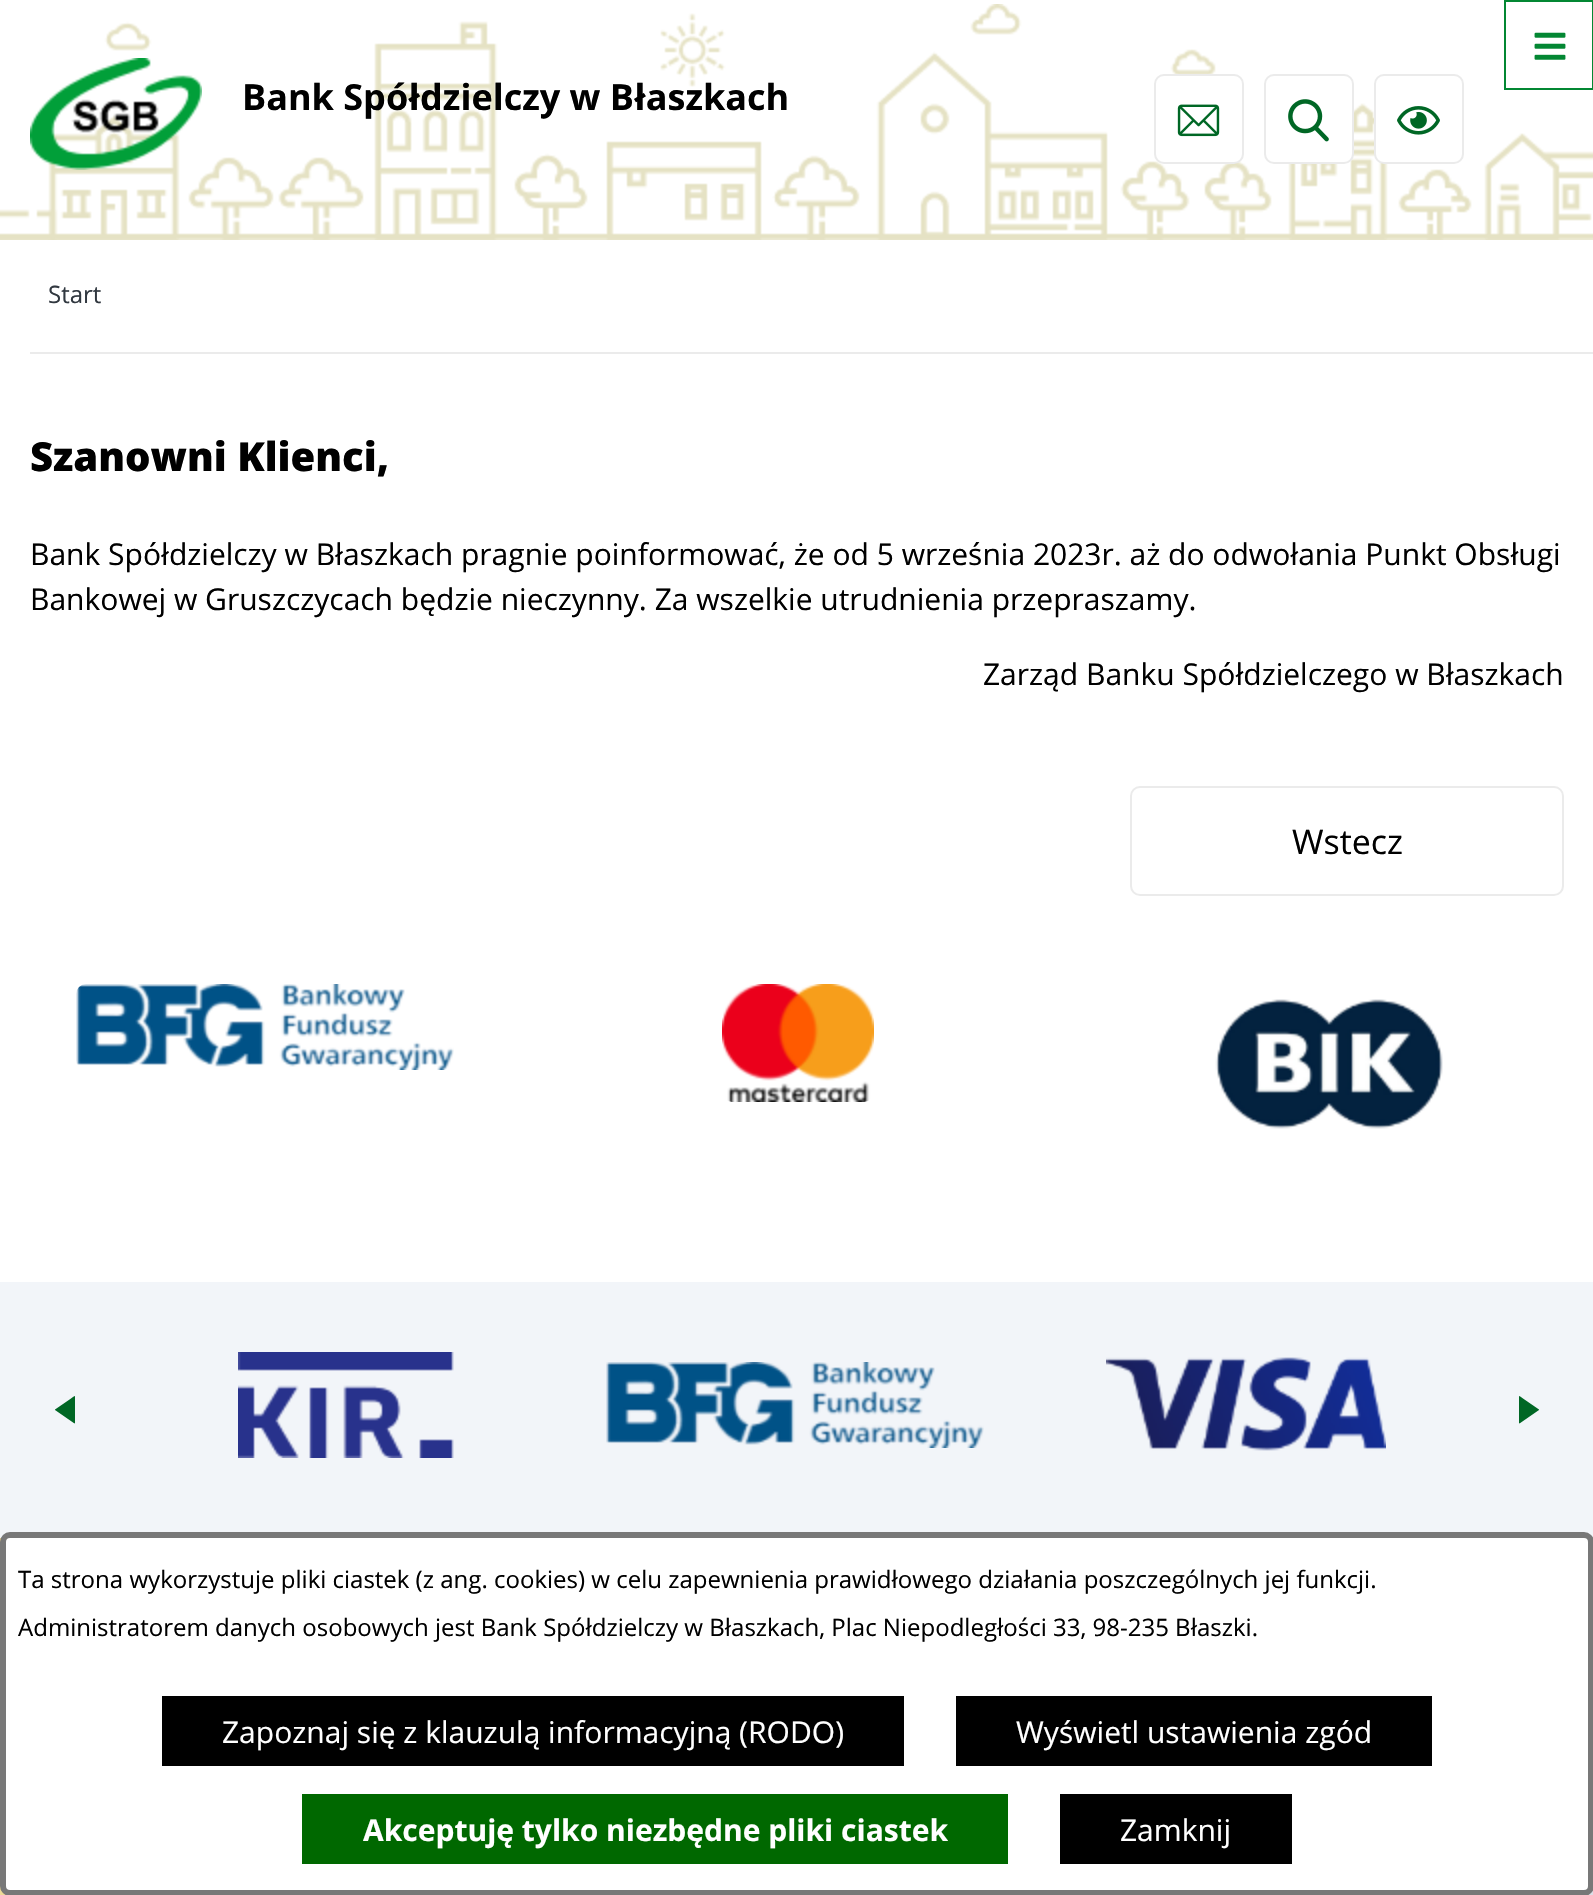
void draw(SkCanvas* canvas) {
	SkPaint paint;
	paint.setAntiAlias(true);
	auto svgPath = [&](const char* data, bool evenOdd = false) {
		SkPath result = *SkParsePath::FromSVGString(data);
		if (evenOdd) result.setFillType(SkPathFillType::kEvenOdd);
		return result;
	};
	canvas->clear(0xffffffff);
	canvas->drawImageRect(SkImages::DeferredFromEncodedData(SkData::MakeFromFileName("img2.png")), SkRect::MakeXYWH(0, 4, 1593, 236), SkSamplingOptions());
	paint.setColor(0xffffffff);
	canvas->drawRect(SkRect::MakeXYWH(1506, 7, 52, 32), paint);
	paint.setStroke(true);
	paint.setStrokeWidth(2);
	paint.setColor(0xff038733);
	canvas->drawRect(SkRect::MakeXYWH(1505, 1, 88, 88), paint);
	canvas->drawImageRect(SkImages::DeferredFromEncodedData(SkData::MakeFromFileName("img1.png")), SkRect::MakeXYWH(1534, 32, 32, 28), SkSamplingOptions());
	canvas->drawImageRect(SkImages::DeferredFromEncodedData(SkData::MakeFromFileName("img3.png")), SkRect::MakeXYWH(30, 58, 172, 112), SkSamplingOptions());
	SkFont f1(fontMgr->matchFamilyStyle("Open Sans", SkFontStyle::Bold()), 36);
	f1.setSubpixel(true);
	paint.setStroke(false);
	paint.setColor(0xff000000);
	canvas->drawString("Bank Spółdzielczy w Błaszkach", 242, 110, f1, paint);
	paint.setColor(0xffffffff);
	canvas->drawRoundRect(SkRect::MakeXYWH(1155, 75, 88, 88), 9, 9, paint);
	paint.setStroke(true);
	paint.setColor(0xffebebeb);
	canvas->drawRoundRect(SkRect::MakeXYWH(1155, 75, 88, 88), 9, 9, paint);
	canvas->drawImageRect(SkImages::DeferredFromEncodedData(SkData::MakeFromFileName("img4.png")), SkRect::MakeXYWH(1177, 104, 43, 33), SkSamplingOptions());
	paint.setStroke(false);
	paint.setColor(0xffffffff);
	canvas->drawRoundRect(SkRect::MakeXYWH(1265, 75, 88, 88), 9, 9, paint);
	paint.setStroke(true);
	paint.setColor(0xffebebeb);
	canvas->drawRoundRect(SkRect::MakeXYWH(1265, 75, 88, 88), 9, 9, paint);
	canvas->drawImageRect(SkImages::DeferredFromEncodedData(SkData::MakeFromFileName("img5.png")), SkRect::MakeXYWH(1288, 99, 41, 43), SkSamplingOptions());
	paint.setStroke(false);
	paint.setColor(0xffffffff);
	canvas->drawRoundRect(SkRect::MakeXYWH(1375, 75, 88, 88), 9, 9, paint);
	paint.setStroke(true);
	paint.setColor(0xffebebeb);
	canvas->drawRoundRect(SkRect::MakeXYWH(1375, 75, 88, 88), 9, 9, paint);
	canvas->drawImageRect(SkImages::DeferredFromEncodedData(SkData::MakeFromFileName("img6.png")), SkRect::MakeXYWH(1397, 106, 43, 29), SkSamplingOptions());
	paint.setStroke(false);
	canvas->drawRect(SkRect::MakeXYWH(30, 352, 1563, 2), paint);
	SkFont f2(fontMgr->matchFamilyStyle("Open Sans", SkFontStyle::Normal()), 24);
	f2.setSubpixel(true);
	paint.setColor(0xff313840);
	canvas->drawString("Start", 48, 303, f2, paint);
	SkFont f3(fontMgr->matchFamilyStyle("Open Sans", SkFontStyle(800, SkFontStyle::kNormal_Width, SkFontStyle::kUpright_Slant)), 40);
	f3.setSubpixel(true);
	paint.setColor(0xff000000);
	canvas->drawString("Szanowni Klienci,", 30, 471, f3, paint);
	SkFont f4(fontMgr->matchFamilyStyle("Open Sans", SkFontStyle::Normal()), 30);
	f4.setSubpixel(true);
	canvas->drawString("Bank Spółdzielczy w Błaszkach pragnie poinformować, że od 5 września 2023r. aż do odwołania Punkt Obsługi", 30, 565, f4, paint);
	canvas->drawString("Bankowej w Gruszczycach będzie nieczynny. Za wszelkie utrudnienia przepraszamy.", 30, 610, f4, paint);
	canvas->drawString("Zarząd Banku Spółdzielczego w Błaszkach", 983, 685, f4, paint);
	paint.setStroke(true);
	paint.setColor(0xffebebeb);
	canvas->drawRoundRect(SkRect::MakeXYWH(1131, 787, 432, 108), 9, 9, paint);
	SkFont f5(fontMgr->matchFamilyStyle("Open Sans", SkFontStyle::Normal()), 34);
	f5.setSubpixel(true);
	paint.setStroke(false);
	paint.setColor(0xff000000);
	canvas->drawString("Wstecz", 1292, 854, f5, paint);
	canvas->drawImageRect(SkImages::DeferredFromEncodedData(SkData::MakeFromFileName("img7.png")), SkRect::MakeXYWH(76, 984, 378, 86), SkSamplingOptions());
	canvas->drawImageRect(SkImages::DeferredFromEncodedData(SkData::MakeFromFileName("img8.png")), SkRect::MakeXYWH(722, 984, 152, 118), SkSamplingOptions());
	canvas->drawImageRect(SkImages::DeferredFromEncodedData(SkData::MakeFromFileName("img9.png")), SkRect::MakeXYWH(1215, 999, 228, 130), SkSamplingOptions());
	paint.setColor(0xffdcdee7);
	canvas->drawRect(SkRect::MakeXYWH(1588, 1890, 5, 5), paint);
	paint.setColor(0xfff2f5f9);
	canvas->drawRect(SkRect::MakeXYWH(0, 1282, 1593, 256), paint);
	canvas->drawImageRect(SkImages::DeferredFromEncodedData(SkData::MakeFromFileName("img10.png")), SkRect::MakeXYWH(238, 1352, 216, 106), SkSamplingOptions());
	canvas->drawImageRect(SkImages::DeferredFromEncodedData(SkData::MakeFromFileName("img11.png")), SkRect::MakeXYWH(606, 1362, 378, 86), SkSamplingOptions());
	canvas->drawImageRect(SkImages::DeferredFromEncodedData(SkData::MakeFromFileName("img12.png")), SkRect::MakeXYWH(1106, 1357, 280, 94), SkSamplingOptions());
	paint.setColor(0xff006725);
	canvas->drawPath(svgPath("M55 1409.5L71 1398.5C74 1396.5 75 1395 75 1397V1423L74.5 1423.5L55 1410Z"), paint);
	canvas->drawPath(svgPath("M1539 1409.5L1523 1398.5C1520 1396.5 1519 1395 1519 1397V1423L1519.5 1423.5L1539 1410Z"), paint);
	canvas->drawImageRect(SkImages::DeferredFromEncodedData(SkData::MakeFromFileName("img13.png")), SkRect::MakeXYWH(0, 1538, 6, 357), SkSamplingOptions());
	paint.setColor(0xffffffff);
	canvas->drawRoundRect(SkRect::MakeXYWH(3, 1535, 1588, 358), 7, 7, paint);
	paint.setStroke(true);
	paint.setStrokeWidth(6);
	paint.setColor(0xff787878);
	canvas->drawRoundRect(SkRect::MakeXYWH(3, 1535, 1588, 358), 7, 7, paint);
	paint.setStroke(false);
	paint.setColor(0xff000000);
	canvas->drawString("Ta strona wykorzystuje pliki ciastek (z ang. cookies) w celu zapewnienia prawidłowego działania poszczególnych jej funkcji.", 18, 1588, f2, paint);
	canvas->drawString("Administratorem danych osobowych jest Bank Spółdzielczy w Błaszkach, Plac Niepodległości 33, 98-235 Błaszki.", 18, 1636, f2, paint);
	canvas->drawRect(SkRect::MakeXYWH(162, 1696, 742, 70), paint);
	paint.setColor(0xffffffff);
	canvas->drawString("Zapoznaj się z klauzulą informacyjną (RODO)", 222, 1743, f4, paint);
	paint.setColor(0xff000000);
	canvas->drawRect(SkRect::MakeXYWH(956, 1696, 476, 70), paint);
	paint.setColor(0xffffffff);
	canvas->drawString("Wyświetl ustawienia zgód", 1016, 1743, f4, paint);
	paint.setColor(0xff006800);
	canvas->drawRect(SkRect::MakeXYWH(302, 1794, 706, 70), paint);
	SkFont f6(fontMgr->matchFamilyStyle("Open Sans", SkFontStyle::Bold()), 30);
	f6.setSubpixel(true);
	paint.setColor(0xffffffff);
	canvas->drawString("Akceptuję tylko niezbędne pliki ciastek", 363, 1841, f6, paint);
	paint.setColor(0xff000000);
	canvas->drawRect(SkRect::MakeXYWH(1060, 1794, 232, 70), paint);
	paint.setColor(0xffffffff);
	canvas->drawString("Zamknij", 1120, 1841, f4, paint);
}
